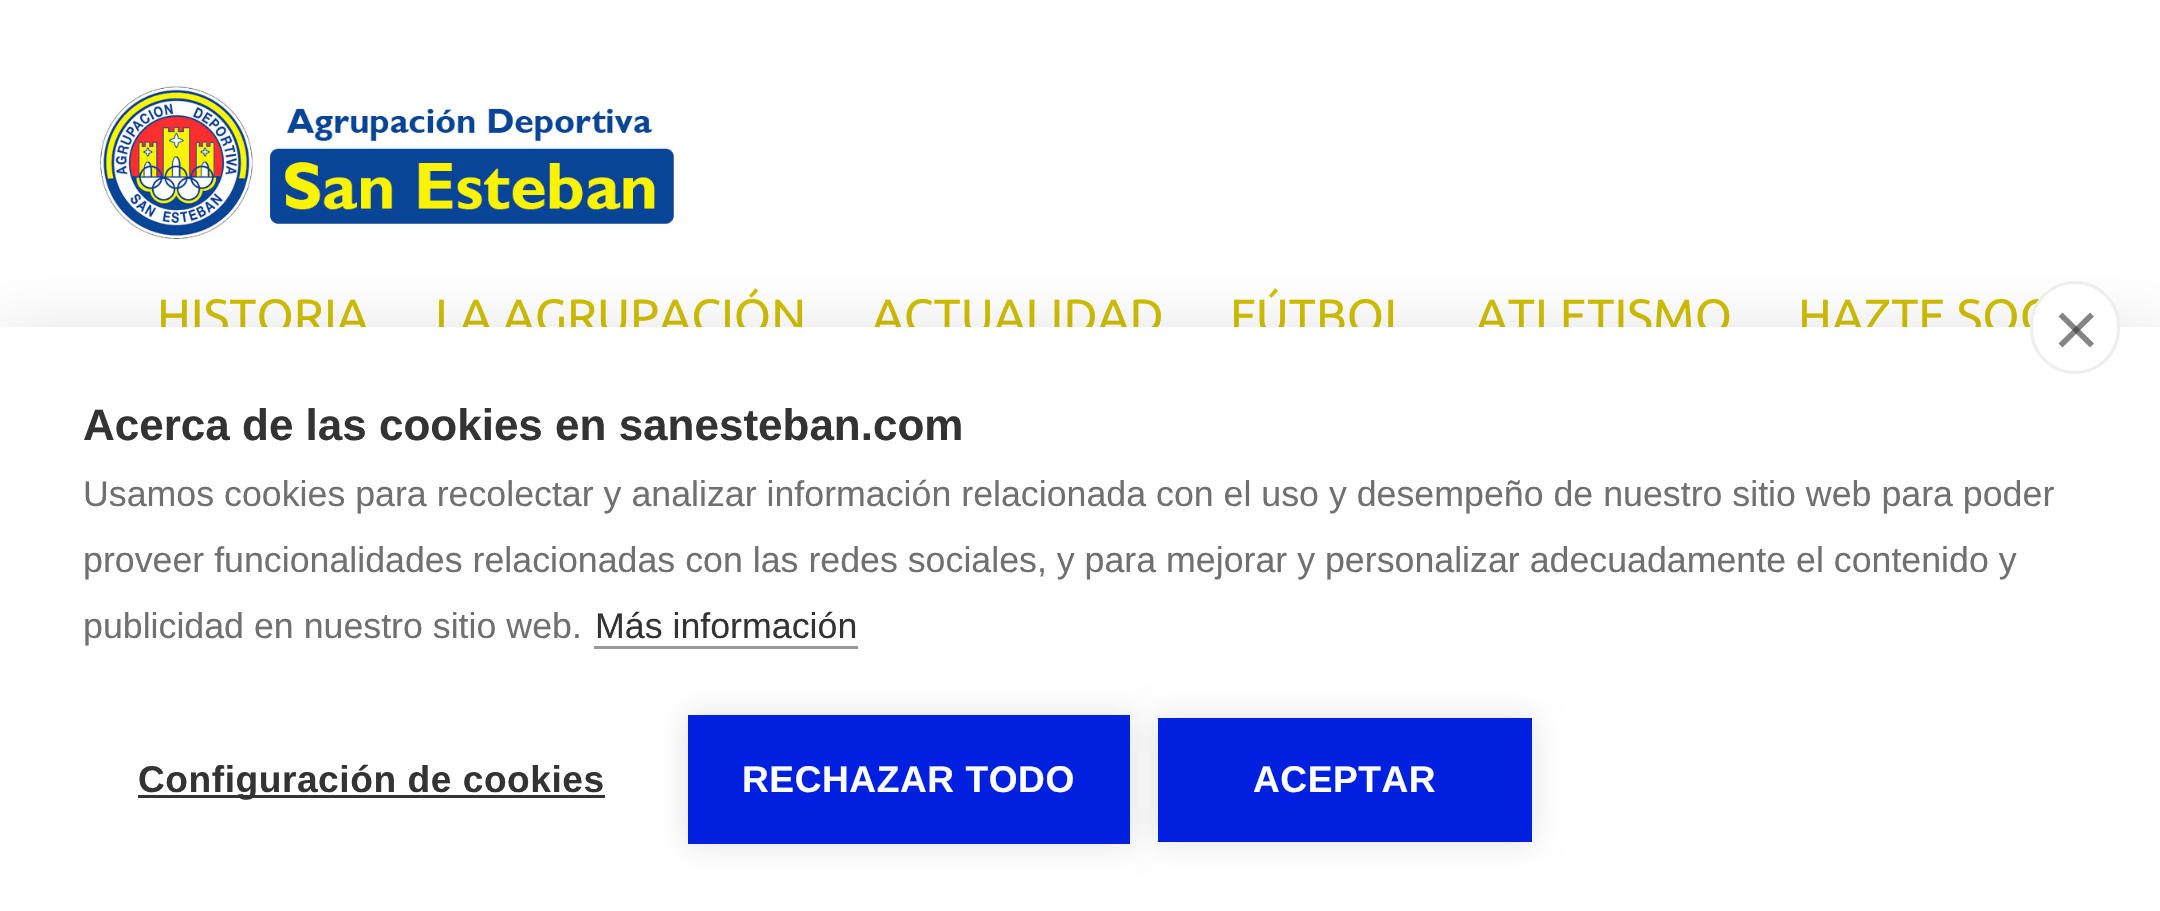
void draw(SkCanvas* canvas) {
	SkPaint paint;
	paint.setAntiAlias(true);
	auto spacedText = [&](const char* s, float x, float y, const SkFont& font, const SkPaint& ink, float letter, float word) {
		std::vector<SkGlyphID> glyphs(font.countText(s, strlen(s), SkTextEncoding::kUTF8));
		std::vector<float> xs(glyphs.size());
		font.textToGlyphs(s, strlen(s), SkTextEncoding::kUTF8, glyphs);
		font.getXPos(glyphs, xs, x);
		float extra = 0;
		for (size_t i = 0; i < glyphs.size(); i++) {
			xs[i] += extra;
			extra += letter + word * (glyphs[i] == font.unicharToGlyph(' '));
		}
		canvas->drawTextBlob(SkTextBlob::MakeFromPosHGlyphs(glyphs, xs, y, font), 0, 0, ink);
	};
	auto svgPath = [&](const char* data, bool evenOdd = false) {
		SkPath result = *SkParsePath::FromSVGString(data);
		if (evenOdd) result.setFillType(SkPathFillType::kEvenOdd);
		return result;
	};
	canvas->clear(0xffffffff);
	canvas->drawImageRect(SkImages::DeferredFromEncodedData(SkData::MakeFromFileName("img1.png")), SkRect::MakeXYWH(100, 86, 574, 153), SkSamplingOptions());
	SkFont f1(fontMgr->matchFamilyStyle("Ubuntu", SkFontStyle::Normal()), 48);
	f1.setSubpixel(true);
	paint.setColor(0xffd0be00);
	canvas->drawString("HISTORIA", 157, 333, f1, paint);
	canvas->drawString("LA AGRUPACIÓN", 435, 333, f1, paint);
	canvas->drawString("ACTUALIDAD", 872, 333, f1, paint);
	canvas->drawString("FÚTBOL", 1230, 333, f1, paint);
	canvas->drawString("ATLETISMO", 1476, 333, f1, paint);
	canvas->drawString("HAZTE SOC", 1798, 333, f1, paint);
	paint.setColor(0x1a000000);
	paint.setMaskFilter(SkMaskFilter::MakeBlur(kNormal_SkBlurStyle, 27.5));
	canvas->drawRect(SkRect::MakeXYWH(0, 327, 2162, 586), paint);
	paint.setMaskFilter(nullptr);
	paint.setColor(0xffffffff);
	canvas->drawRect(SkRect::MakeXYWH(0, 327, 2160, 584), paint);
	canvas->drawRoundRect(SkRect::MakeXYWH(2031.5, 282.5, 87, 90), 43.5, 43.5, paint);
	paint.setStroke(true);
	paint.setStrokeWidth(3);
	paint.setColor(0xffeeeeee);
	canvas->drawRoundRect(SkRect::MakeXYWH(2031.5, 282.5, 87, 90), 43.5, 43.5, paint);
	paint.setStroke(false);
	paint.setColor(0xff858585);
	canvas->drawPath(svgPath("M2058.5 343.5L2090 312.5L2094 316.5L2062.5 347.5Z"), paint);
	paint.setColor(0x99333333);
	canvas->drawPath(svgPath("M2062.5 312.5L2094 343.5L2090 347.5L2058.5 316.5Z"), paint);
	SkFont f2(fontMgr->matchFamilyStyle("Liberation Sans", SkFontStyle::Bold()), 44);
	f2.setSubpixel(true);
	paint.setColor(0xff333333);
	canvas->drawString("Acerca de las cookies en sanesteban.com", 83, 440, f2, paint);
	SkFont f3(fontMgr->matchFamilyStyle("Liberation Sans", SkFontStyle::Normal()), 35.75);
	f3.setSubpixel(true);
	paint.setColor(0xff707070);
	canvas->drawString("Usamos cookies para recolectar y analizar información relacionada con el uso y desempeño de nuestro sitio web para poder", 83, 506, f3, paint);
	canvas->drawString("proveer funcionalidades relacionadas con las redes sociales, y para mejorar y personalizar adecuadamente el contenido y", 83, 572, f3, paint);
	canvas->drawString("publicidad en nuestro sitio web.", 83, 638, f3, paint);
	paint.setColor(0xff333333);
	canvas->drawString("Más información", 595, 638, f3, paint);
	paint.setColor(0xff999999);
	canvas->drawRect(SkRect::MakeXYWH(594, 646, 264, 3), paint);
	paint.setColor(0xff333333);
	canvas->drawRect(SkRect::MakeXYWH(138, 795, 467, 3), paint);
	SkFont f4(fontMgr->matchFamilyStyle("Liberation Sans", SkFontStyle::Bold()), 37.1);
	f4.setSubpixel(true);
	spacedText("Configuración de cookies", 138, 792, f4, paint, 0.55, 0);
	paint.setColor(0x1f000000);
	paint.setMaskFilter(SkMaskFilter::MakeBlur(kNormal_SkBlurStyle, 14));
	canvas->drawRect(SkRect::MakeXYWH(688, 715, 442, 129), paint);
	paint.setMaskFilter(nullptr);
	paint.setColor(0xff0020df);
	canvas->drawRect(SkRect::MakeXYWH(688, 715, 442, 129), paint);
	paint.setColor(0xffffffff);
	spacedText("RECHAZAR TODO", 742, 792, f4, paint, 0.55, 0);
	paint.setColor(0x1f000000);
	paint.setMaskFilter(SkMaskFilter::MakeBlur(kNormal_SkBlurStyle, 14));
	canvas->drawRect(SkRect::MakeXYWH(1158, 718, 374, 124), paint);
	paint.setMaskFilter(nullptr);
	paint.setColor(0xff0020df);
	canvas->drawRect(SkRect::MakeXYWH(1158, 718, 374, 124), paint);
	paint.setColor(0xffffffff);
	spacedText("ACEPTAR", 1253, 792, f4, paint, 0.55, 0);
}
